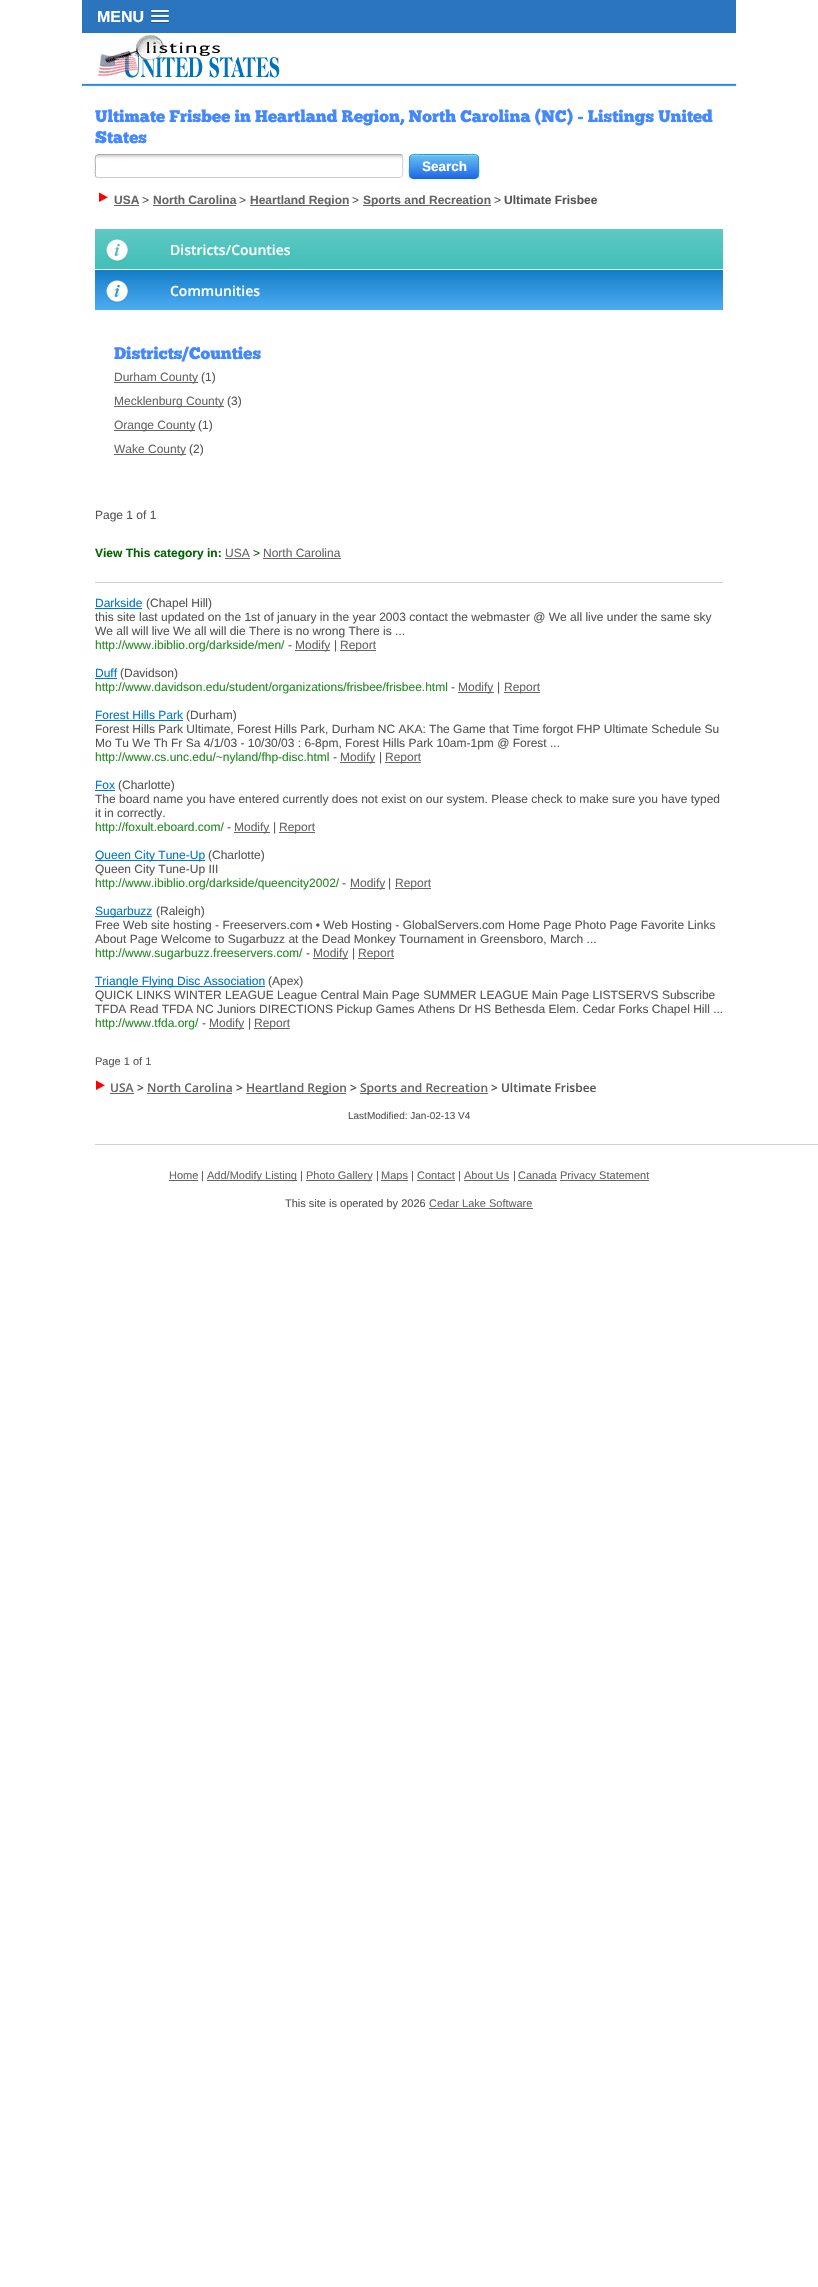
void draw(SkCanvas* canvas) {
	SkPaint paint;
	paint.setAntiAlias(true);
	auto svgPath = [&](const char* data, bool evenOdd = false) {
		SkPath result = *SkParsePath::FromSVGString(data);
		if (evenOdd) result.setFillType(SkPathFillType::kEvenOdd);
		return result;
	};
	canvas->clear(0xffffffff);
	paint.setColor(0xff2a75bd);
	canvas->drawRect(SkRect::MakeXYWH(82, 0, 654, 33), paint);
	SkFont f1(fontMgr->matchFamilyStyle("Liberation Sans", SkFontStyle::Bold()), 16);
	f1.setSubpixel(true);
	paint.setColor(0xffffffff);
	canvas->drawString("MENU", 97, 22, f1, paint);
	paint.setColor(0xff20588e);
	canvas->drawPath(svgPath("M151 11.5C150 13.5 154.5 13 154.5 13H165.5C165.5 13 170 13.5 169 11.5C168 12.5 161.5 12 160 12C158.5 12 152 12.5 151 11.5Z"), paint);
	paint.setColor(0xfff5f5f5);
	canvas->drawRoundRect(SkRect::MakeXYWH(151, 10, 18, 2), 1, 1, paint);
	paint.setColor(0xff20588e);
	canvas->drawPath(svgPath("M151 16.5C150 18.5 154.5 18 154.5 18H165.5C165.5 18 170 18.5 169 16.5C168 17.5 161.5 17 160 17C158.5 17 152 17.5 151 16.5Z"), paint);
	paint.setColor(0xfff5f5f5);
	canvas->drawRoundRect(SkRect::MakeXYWH(151, 15, 18, 2), 1, 1, paint);
	paint.setColor(0xff20588e);
	canvas->drawPath(svgPath("M151 21.5C150 23.5 154.5 23 154.5 23H165.5C165.5 23 170 23.5 169 21.5C168 22.5 161.5 22 160 22C158.5 22 152 22.5 151 21.5Z"), paint);
	paint.setColor(0xfff5f5f5);
	canvas->drawRoundRect(SkRect::MakeXYWH(151, 20, 18, 2), 1, 1, paint);
	canvas->drawImageRect(SkImages::DeferredFromEncodedData(SkData::MakeFromFileName("img1.png")), SkRect::MakeXYWH(98, 34, 182, 44), SkSamplingOptions());
	paint.setColor(0x33000000);
	paint.setMaskFilter(SkMaskFilter::MakeBlur(kNormal_SkBlurStyle, 1));
	canvas->drawRect(SkRect::MakeXYWH(82, 84, 654, 2), paint);
	paint.setMaskFilter(nullptr);
	{
		const SkColor colors[] = {0xff147dc8, 0xff4cadf2};
		const float stops[] = {0, 1};
		const SkPoint ends[] = {{409, 84}, {409, 86}};
		paint.setShader(SkGradientShader::MakeLinear(ends, colors, stops, 2, SkTileMode::kClamp));
		paint.setAlpha(255);
	}
	canvas->drawRect(SkRect::MakeXYWH(82, 84, 654, 2), paint);
	SkFont f2(fontMgr->matchFamilyStyle("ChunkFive", SkFontStyle::Normal()), 16.8);
	f2.setSubpixel(true);
	paint.setShader(nullptr);
	paint.setColor(0xff4488ff);
	canvas->drawString("Ultimate Frisbee in Heartland Region, North Carolina (NC) - Listings United", 95, 122, f2, paint);
	canvas->drawString("States", 95, 143, f2, paint);
	canvas->save();
	canvas->clipPath(svgPath("M98 154H400C401.5 154 403 155.5 403 157V175C403 176.5 401.5 178 400 178H98C96.5 178 95 176.5 95 175V157C95 155.5 96.5 154 98 154Z"), true);
	{
		const SkColor colors[] = {0xffd1d1d1, 0xffffffff, 0xffffffff};
		const float stops[] = {0, 0.18, 1};
		const SkPoint ends[] = {{249, 155}, {249, 177}};
		paint.setShader(SkGradientShader::MakeLinear(ends, colors, stops, 3, SkTileMode::kClamp));
		paint.setAlpha(255);
	}
	canvas->drawRect(SkRect::MakeXYWH(95, 155, 308, 22), paint);
	canvas->restore();
	paint.setStroke(true);
	paint.setStrokeWidth(1);
	paint.setShader(nullptr);
	paint.setColor(0xffcccccc);
	canvas->drawPath(svgPath("M402 155C403.5 157 402.5 164 402.5 166C402.5 168 404 176.5 400.5 177.5H98L96 177"), paint);
	paint.setColor(0xffaaaaaa);
	canvas->drawPath(svgPath("M96 177C94.5 175 95.5 168 95.5 166C95.5 164 94 155.5 97.5 154.5H400L402 155"), paint);
	paint.setStroke(false);
	paint.setColor(0x0d000000);
	paint.setMaskFilter(SkMaskFilter::MakeBlur(kNormal_SkBlurStyle, 1));
	canvas->drawRoundRect(SkRect::MakeXYWH(409, 155, 70, 25), 4, 4, paint);
	paint.setMaskFilter(nullptr);
	canvas->save();
	canvas->clipPath(svgPath("M413 154H475C477 154 479 156 479 158V175C479 177 477 179 475 179H413C411 179 409 177 409 175V158C409 156 411 154 413 154Z"), true);
	{
		const SkColor colors[] = {0xff67c2ef, 0xff2267e9};
		const float stops[] = {0, 1};
		const SkPoint ends[] = {{444, 155}, {444, 178}};
		paint.setShader(SkGradientShader::MakeLinear(ends, colors, stops, 2, SkTileMode::kClamp));
		paint.setAlpha(255);
	}
	canvas->drawRect(SkRect::MakeXYWH(409, 155, 70, 23), paint);
	canvas->restore();
	paint.setShader(nullptr);
	paint.setColor(0x33ffffff);
	canvas->drawPath(svgPath("M413 156H475C477 156 478 157 478 159C478 152 469 155 465 155H423C419 155 410 152 410 159C410 157 411 156 413 156Z"), paint);
	paint.setStroke(true);
	paint.setColor(0xff007bb8);
	canvas->drawPath(svgPath("M477.5 177.5L475.5 178.5H412.5L410.5 177.5"), paint);
	paint.setColor(0xff1598d9);
	canvas->drawPath(svgPath("M410.5 177.5C408.5 175 409.5 169 409.5 166.5C409.5 152.5 408.5 154.5 423.5 154.5H464.5C479.5 154.5 478.5 152.5 478.5 166.5C478.5 169 479.5 175 477.5 177.5"), paint);
	SkFont f3(fontMgr->matchFamilyStyle("Liberation Sans", SkFontStyle::Bold()), 13.5);
	f3.setSubpixel(true);
	paint.setStroke(false);
	paint.setColor(0xffffffff);
	canvas->drawString("Search", 422, 171, f3, paint);
	canvas->drawImageRect(SkImages::DeferredFromEncodedData(SkData::MakeFromFileName("img2.png")), SkRect::MakeXYWH(99, 192, 9, 10), SkSamplingOptions());
	SkFont f4(fontMgr->matchFamilyStyle("Liberation Sans", SkFontStyle::Bold()), 12);
	f4.setSubpixel(true);
	paint.setColor(0xff666666);
	canvas->drawString("USA", 114, 204, f4, paint);
	canvas->drawRect(SkRect::MakeXYWH(114, 205, 25, 1), paint);
	SkFont f5(fontMgr->matchFamilyStyle("Liberation Sans", SkFontStyle::Normal()), 12);
	f5.setSubpixel(true);
	paint.setColor(0xff555555);
	canvas->drawString(">", 142, 204, f5, paint);
	paint.setColor(0xff666666);
	canvas->drawString("North Carolina", 153, 204, f4, paint);
	canvas->drawRect(SkRect::MakeXYWH(153, 205, 83, 1), paint);
	paint.setColor(0xff555555);
	canvas->drawString(">", 239, 204, f5, paint);
	paint.setColor(0xff666666);
	canvas->drawRect(SkRect::MakeXYWH(250, 205, 99, 1), paint);
	canvas->drawString("Heartland Region", 250, 204, f4, paint);
	paint.setColor(0xff555555);
	canvas->drawString(">", 352, 204, f5, paint);
	paint.setColor(0xff666666);
	canvas->drawRect(SkRect::MakeXYWH(363, 205, 128, 1), paint);
	canvas->drawString("Sports and Recreation", 363, 204, f4, paint);
	paint.setColor(0xff555555);
	canvas->drawString(">", 494, 204, f5, paint);
	canvas->drawString("Ultimate Frisbee", 504, 204, f4, paint);
	{
		const SkColor colors[] = {0xff5fc8c2, 0xff40bfb8};
		const float stops[] = {0, 1};
		const SkPoint ends[] = {{409, 229}, {409, 269}};
		paint.setShader(SkGradientShader::MakeLinear(ends, colors, stops, 2, SkTileMode::kClamp));
		paint.setAlpha(255);
	}
	canvas->drawRect(SkRect::MakeXYWH(95, 229, 628, 40), paint);
	canvas->drawImageRect(SkImages::DeferredFromEncodedData(SkData::MakeFromFileName("img3.png")), SkRect::MakeXYWH(106, 239, 22, 23), SkSamplingOptions());
	SkFont f6(fontMgr->matchFamilyStyle("Open Sans", SkFontStyle(600, SkFontStyle::kNormal_Width, SkFontStyle::kUpright_Slant)), 14);
	f6.setSubpixel(true);
	paint.setShader(nullptr);
	paint.setColor(0xffffffff);
	canvas->drawString("Districts/Counties", 170, 255, f6, paint);
	{
		const SkColor colors[] = {0xff147dc8, 0xff4cadf2};
		const float stops[] = {0, 1};
		const SkPoint ends[] = {{409, 270}, {409, 310}};
		paint.setShader(SkGradientShader::MakeLinear(ends, colors, stops, 2, SkTileMode::kClamp));
		paint.setAlpha(255);
	}
	canvas->drawRect(SkRect::MakeXYWH(95, 270, 628, 40), paint);
	canvas->drawImageRect(SkImages::DeferredFromEncodedData(SkData::MakeFromFileName("img4.png")), SkRect::MakeXYWH(106, 280, 22, 23), SkSamplingOptions());
	paint.setShader(nullptr);
	paint.setColor(0xffffffff);
	canvas->drawString("Communities", 170, 296, f6, paint);
	paint.setColor(0xff4488ff);
	canvas->drawString("Districts/Counties", 114, 359, f2, paint);
	paint.setColor(0xff666666);
	canvas->drawRect(SkRect::MakeXYWH(114, 382, 84, 1), paint);
	canvas->drawString("Durham County", 114, 381, f5, paint);
	paint.setColor(0xff555555);
	canvas->drawString("(1)", 201, 381, f5, paint);
	paint.setColor(0xff666666);
	canvas->drawRect(SkRect::MakeXYWH(114, 406, 110, 1), paint);
	canvas->drawString("Mecklenburg County", 114, 405, f5, paint);
	paint.setColor(0xff555555);
	canvas->drawString("(3)", 227, 405, f5, paint);
	paint.setColor(0xff666666);
	canvas->drawRect(SkRect::MakeXYWH(114, 430, 81, 1), paint);
	canvas->drawString("Orange County", 114, 429, f5, paint);
	paint.setColor(0xff555555);
	canvas->drawString("(1)", 198, 429, f5, paint);
	paint.setColor(0xff666666);
	canvas->drawRect(SkRect::MakeXYWH(114, 454, 72, 1), paint);
	canvas->drawString("Wake County", 114, 453, f5, paint);
	paint.setColor(0xff555555);
	canvas->drawString("(2)", 189, 453, f5, paint);
	canvas->drawString("Page 1 of 1", 95, 519, f5, paint);
	paint.setColor(0xff006400);
	canvas->drawString("View This category in:", 95, 557, f4, paint);
	paint.setColor(0xff666666);
	canvas->drawString("USA", 225, 557, f5, paint);
	canvas->drawRect(SkRect::MakeXYWH(225, 558, 25, 1), paint);
	paint.setColor(0xff006400);
	canvas->drawString(">", 253, 557, f5, paint);
	paint.setColor(0xff666666);
	canvas->drawString("North Carolina", 263, 557, f5, paint);
	canvas->drawRect(SkRect::MakeXYWH(263, 558, 78, 1), paint);
	paint.setColor(0xffd0d0d0);
	canvas->drawRect(SkRect::MakeXYWH(95, 582, 628, 1), paint);
	paint.setColor(0xff0077cc);
	canvas->drawString("Darkside", 95, 607, f5, paint);
	canvas->drawRect(SkRect::MakeXYWH(95, 608, 47, 1), paint);
	paint.setColor(0xff555555);
	canvas->drawString("(Chapel Hill)", 146, 607, f5, paint);
	canvas->drawString("this site last updated on the 1st of january in the year 2003 contact the webmaster @ We all live under the same sky", 95, 621, f5, paint);
	canvas->drawString("We all will live We all will die There is no wrong There is ...", 95, 635, f5, paint);
	paint.setColor(0xff228b22);
	canvas->drawString("http://www.ibiblio.org/darkside/men/", 95, 649, f5, paint);
	paint.setColor(0xff555555);
	canvas->drawString("-", 288, 649, f5, paint);
	paint.setColor(0xff666666);
	canvas->drawRect(SkRect::MakeXYWH(295, 650, 35, 1), paint);
	canvas->drawString("Modify", 295, 649, f5, paint);
	paint.setColor(0xff555555);
	canvas->drawString("|", 334, 649, f5, paint);
	paint.setColor(0xff666666);
	canvas->drawRect(SkRect::MakeXYWH(340, 650, 36, 1), paint);
	canvas->drawString("Report", 340, 649, f5, paint);
	paint.setColor(0xff0077cc);
	canvas->drawString("Duff", 95, 677, f5, paint);
	canvas->drawRect(SkRect::MakeXYWH(95, 678, 22, 1), paint);
	paint.setColor(0xff555555);
	canvas->drawString("(Davidson)", 120, 677, f5, paint);
	paint.setColor(0xff228b22);
	canvas->drawString("http://www.davidson.edu/student/organizations/frisbee/frisbee.html", 95, 691, f5, paint);
	paint.setColor(0xff555555);
	canvas->drawString("-", 451, 691, f5, paint);
	paint.setColor(0xff666666);
	canvas->drawRect(SkRect::MakeXYWH(458, 692, 36, 1), paint);
	canvas->drawString("Modify", 458, 691, f5, paint);
	paint.setColor(0xff555555);
	canvas->drawString("|", 497, 691, f5, paint);
	paint.setColor(0xff666666);
	canvas->drawRect(SkRect::MakeXYWH(504, 692, 36, 1), paint);
	canvas->drawString("Report", 504, 691, f5, paint);
	paint.setColor(0xff0077cc);
	canvas->drawString("Forest Hills Park", 95, 719, f5, paint);
	canvas->drawRect(SkRect::MakeXYWH(95, 720, 88, 1), paint);
	paint.setColor(0xff555555);
	canvas->drawString("(Durham)", 186, 719, f5, paint);
	canvas->drawString("Forest Hills Park Ultimate, Forest Hills Park, Durham NC AKA: The Game that Time forgot FHP Ultimate Schedule Su", 95, 733, f5, paint);
	canvas->drawString("Mo Tu We Th Fr Sa 4/1/03 - 10/30/03 : 6-8pm, Forest Hills Park 10am-1pm @ Forest ...", 95, 747, f5, paint);
	paint.setColor(0xff228b22);
	canvas->drawString("http://www.cs.unc.edu/~nyland/fhp-disc.html", 95, 761, f5, paint);
	paint.setColor(0xff555555);
	canvas->drawString("-", 333, 761, f5, paint);
	paint.setColor(0xff666666);
	canvas->drawRect(SkRect::MakeXYWH(340, 762, 35, 1), paint);
	canvas->drawString("Modify", 340, 761, f5, paint);
	paint.setColor(0xff555555);
	canvas->drawString("|", 379, 761, f5, paint);
	paint.setColor(0xff666666);
	canvas->drawRect(SkRect::MakeXYWH(385, 762, 36, 1), paint);
	canvas->drawString("Report", 385, 761, f5, paint);
	paint.setColor(0xff0077cc);
	canvas->drawString("Fox", 95, 789, f5, paint);
	canvas->drawRect(SkRect::MakeXYWH(95, 790, 20, 1), paint);
	paint.setColor(0xff555555);
	canvas->drawString("(Charlotte)", 118, 789, f5, paint);
	canvas->drawString("The board name you have entered currently does not exist on our system. Please check to make sure you have typed", 95, 803, f5, paint);
	canvas->drawString("it in correctly.", 95, 817, f5, paint);
	paint.setColor(0xff228b22);
	canvas->drawString("http://foxult.eboard.com/", 95, 831, f5, paint);
	paint.setColor(0xff555555);
	canvas->drawString("-", 227, 831, f5, paint);
	paint.setColor(0xff666666);
	canvas->drawRect(SkRect::MakeXYWH(234, 832, 36, 1), paint);
	canvas->drawString("Modify", 234, 831, f5, paint);
	paint.setColor(0xff555555);
	canvas->drawString("|", 273, 831, f5, paint);
	paint.setColor(0xff666666);
	canvas->drawRect(SkRect::MakeXYWH(279, 832, 36, 1), paint);
	canvas->drawString("Report", 279, 831, f5, paint);
	paint.setColor(0xff0077cc);
	canvas->drawRect(SkRect::MakeXYWH(95, 860, 110, 1), paint);
	canvas->drawString("Queen City Tune-Up", 95, 859, f5, paint);
	paint.setColor(0xff555555);
	canvas->drawString("(Charlotte)", 208, 859, f5, paint);
	canvas->drawString("Queen City Tune-Up III", 95, 873, f5, paint);
	paint.setColor(0xff228b22);
	canvas->drawString("http://www.ibiblio.org/darkside/queencity2002/", 95, 887, f5, paint);
	paint.setColor(0xff555555);
	canvas->drawString("-", 342, 887, f5, paint);
	paint.setColor(0xff666666);
	canvas->drawRect(SkRect::MakeXYWH(350, 888, 35, 1), paint);
	canvas->drawString("Modify", 350, 887, f5, paint);
	paint.setColor(0xff555555);
	canvas->drawString("|", 388, 887, f5, paint);
	paint.setColor(0xff666666);
	canvas->drawRect(SkRect::MakeXYWH(395, 888, 36, 1), paint);
	canvas->drawString("Report", 395, 887, f5, paint);
	paint.setColor(0xff0077cc);
	canvas->drawRect(SkRect::MakeXYWH(95, 916, 57, 1), paint);
	canvas->drawString("Sugarbuzz", 95, 915, f5, paint);
	paint.setColor(0xff555555);
	canvas->drawString("(Raleigh)", 156, 915, f5, paint);
	canvas->drawString("Free Web site hosting - Freeservers.com • Web Hosting - GlobalServers.com Home Page Photo Page Favorite Links", 95, 929, f5, paint);
	canvas->drawString("About Page Welcome to Sugarbuzz at the Dead Monkey Tournament in Greensboro, March ...", 95, 943, f5, paint);
	paint.setColor(0xff228b22);
	canvas->drawString("http://www.sugarbuzz.freeservers.com/", 95, 957, f5, paint);
	paint.setColor(0xff555555);
	canvas->drawString("-", 306, 957, f5, paint);
	paint.setColor(0xff666666);
	canvas->drawRect(SkRect::MakeXYWH(313, 958, 35, 1), paint);
	canvas->drawString("Modify", 313, 957, f5, paint);
	paint.setColor(0xff555555);
	canvas->drawString("|", 352, 957, f5, paint);
	paint.setColor(0xff666666);
	canvas->drawRect(SkRect::MakeXYWH(358, 958, 36, 1), paint);
	canvas->drawString("Report", 358, 957, f5, paint);
	paint.setColor(0xff0077cc);
	canvas->drawRect(SkRect::MakeXYWH(95, 986, 170, 1), paint);
	canvas->drawString("Triangle Flying Disc Association", 95, 985, f5, paint);
	paint.setColor(0xff555555);
	canvas->drawString("(Apex)", 268, 985, f5, paint);
	canvas->drawString("QUICK LINKS WINTER LEAGUE League Central Main Page SUMMER LEAGUE Main Page LISTSERVS Subscribe", 95, 999, f5, paint);
	canvas->drawString("TFDA Read TFDA NC Juniors DIRECTIONS Pickup Games Athens Dr HS Bethesda Elem. Cedar Forks Chapel Hill ...", 95, 1013, f5, paint);
	paint.setColor(0xff228b22);
	canvas->drawString("http://www.tfda.org/", 95, 1027, f5, paint);
	paint.setColor(0xff555555);
	canvas->drawString("-", 202, 1027, f5, paint);
	paint.setColor(0xff666666);
	canvas->drawRect(SkRect::MakeXYWH(209, 1028, 35, 1), paint);
	canvas->drawString("Modify", 209, 1027, f5, paint);
	paint.setColor(0xff555555);
	canvas->drawString("|", 248, 1027, f5, paint);
	paint.setColor(0xff666666);
	canvas->drawRect(SkRect::MakeXYWH(254, 1028, 36, 1), paint);
	canvas->drawString("Report", 254, 1027, f5, paint);
	SkFont f7(fontMgr->matchFamilyStyle("Liberation Sans", SkFontStyle::Normal()), 11);
	f7.setSubpixel(true);
	paint.setColor(0xff555555);
	canvas->drawString("Page 1 of 1", 95, 1065, f7, paint);
	canvas->drawImageRect(SkImages::DeferredFromEncodedData(SkData::MakeFromFileName("img2.png")), SkRect::MakeXYWH(96, 1080, 9, 10), SkSamplingOptions());
	SkFont f8(fontMgr->matchFamilyStyle("Open Sans", SkFontStyle(600, SkFontStyle::kNormal_Width, SkFontStyle::kUpright_Slant)), 12);
	f8.setSubpixel(true);
	paint.setColor(0xff666666);
	canvas->drawString("USA", 110, 1092, f8, paint);
	canvas->drawRect(SkRect::MakeXYWH(110, 1093, 24, 1), paint);
	paint.setColor(0xff555555);
	canvas->drawString(">", 137, 1092, f8, paint);
	paint.setColor(0xff666666);
	canvas->drawString("North Carolina", 147, 1092, f8, paint);
	canvas->drawRect(SkRect::MakeXYWH(147, 1093, 85, 1), paint);
	paint.setColor(0xff555555);
	canvas->drawString(">", 236, 1092, f8, paint);
	paint.setColor(0xff666666);
	canvas->drawRect(SkRect::MakeXYWH(246, 1093, 100, 1), paint);
	canvas->drawString("Heartland Region", 246, 1092, f8, paint);
	paint.setColor(0xff555555);
	canvas->drawString(">", 350, 1092, f8, paint);
	paint.setColor(0xff666666);
	canvas->drawRect(SkRect::MakeXYWH(360, 1093, 128, 1), paint);
	canvas->drawString("Sports and Recreation", 360, 1092, f8, paint);
	paint.setColor(0xff555555);
	canvas->drawString("> Ultimate Frisbee", 491, 1092, f8, paint);
	SkFont f9(fontMgr->matchFamilyStyle("Liberation Sans", SkFontStyle::Normal()), 10);
	f9.setSubpixel(true);
	canvas->drawString("LastModified: Jan-02-13 V4", 348, 1119, f9, paint);
	paint.setColor(0xffd0d0d0);
	canvas->drawRect(SkRect::MakeXYWH(95, 1144, 723, 1), paint);
	paint.setColor(0xff666666);
	canvas->drawString("Home", 169, 1179, f7, paint);
	canvas->drawRect(SkRect::MakeXYWH(169, 1180, 29, 1), paint);
	paint.setColor(0xff555555);
	canvas->drawString("|", 201, 1179, f7, paint);
	paint.setColor(0xff666666);
	canvas->drawRect(SkRect::MakeXYWH(207, 1180, 90, 1), paint);
	canvas->drawString("Add/Modify Listing", 207, 1179, f7, paint);
	paint.setColor(0xff555555);
	canvas->drawString("|", 300, 1179, f7, paint);
	paint.setColor(0xff666666);
	canvas->drawRect(SkRect::MakeXYWH(306, 1180, 66, 1), paint);
	canvas->drawString("Photo Gallery", 306, 1179, f7, paint);
	paint.setColor(0xff555555);
	canvas->drawString("|", 376, 1179, f7, paint);
	paint.setColor(0xff666666);
	canvas->drawRect(SkRect::MakeXYWH(381, 1180, 27, 1), paint);
	canvas->drawString("Maps", 381, 1179, f7, paint);
	paint.setColor(0xff555555);
	canvas->drawString("|", 411, 1179, f7, paint);
	paint.setColor(0xff666666);
	canvas->drawString("Contact", 417, 1179, f7, paint);
	canvas->drawRect(SkRect::MakeXYWH(417, 1180, 38, 1), paint);
	paint.setColor(0xff555555);
	canvas->drawString("|", 458, 1179, f7, paint);
	paint.setColor(0xff666666);
	canvas->drawString("About Us", 464, 1179, f7, paint);
	canvas->drawRect(SkRect::MakeXYWH(464, 1180, 45, 1), paint);
	paint.setColor(0xff555555);
	canvas->drawString("|", 513, 1179, f7, paint);
	paint.setColor(0xff666666);
	canvas->drawString("Canada", 518, 1179, f7, paint);
	canvas->drawRect(SkRect::MakeXYWH(518, 1180, 39, 1), paint);
	canvas->drawRect(SkRect::MakeXYWH(560, 1180, 89, 1), paint);
	canvas->drawString("Privacy Statement", 560, 1179, f7, paint);
	paint.setColor(0xff555555);
	canvas->drawString("This site is operated by 2026", 285, 1207, f7, paint);
	paint.setColor(0xff666666);
	canvas->drawString("Cedar Lake Software", 429, 1207, f7, paint);
	canvas->drawRect(SkRect::MakeXYWH(429, 1208, 104, 1), paint);
}
